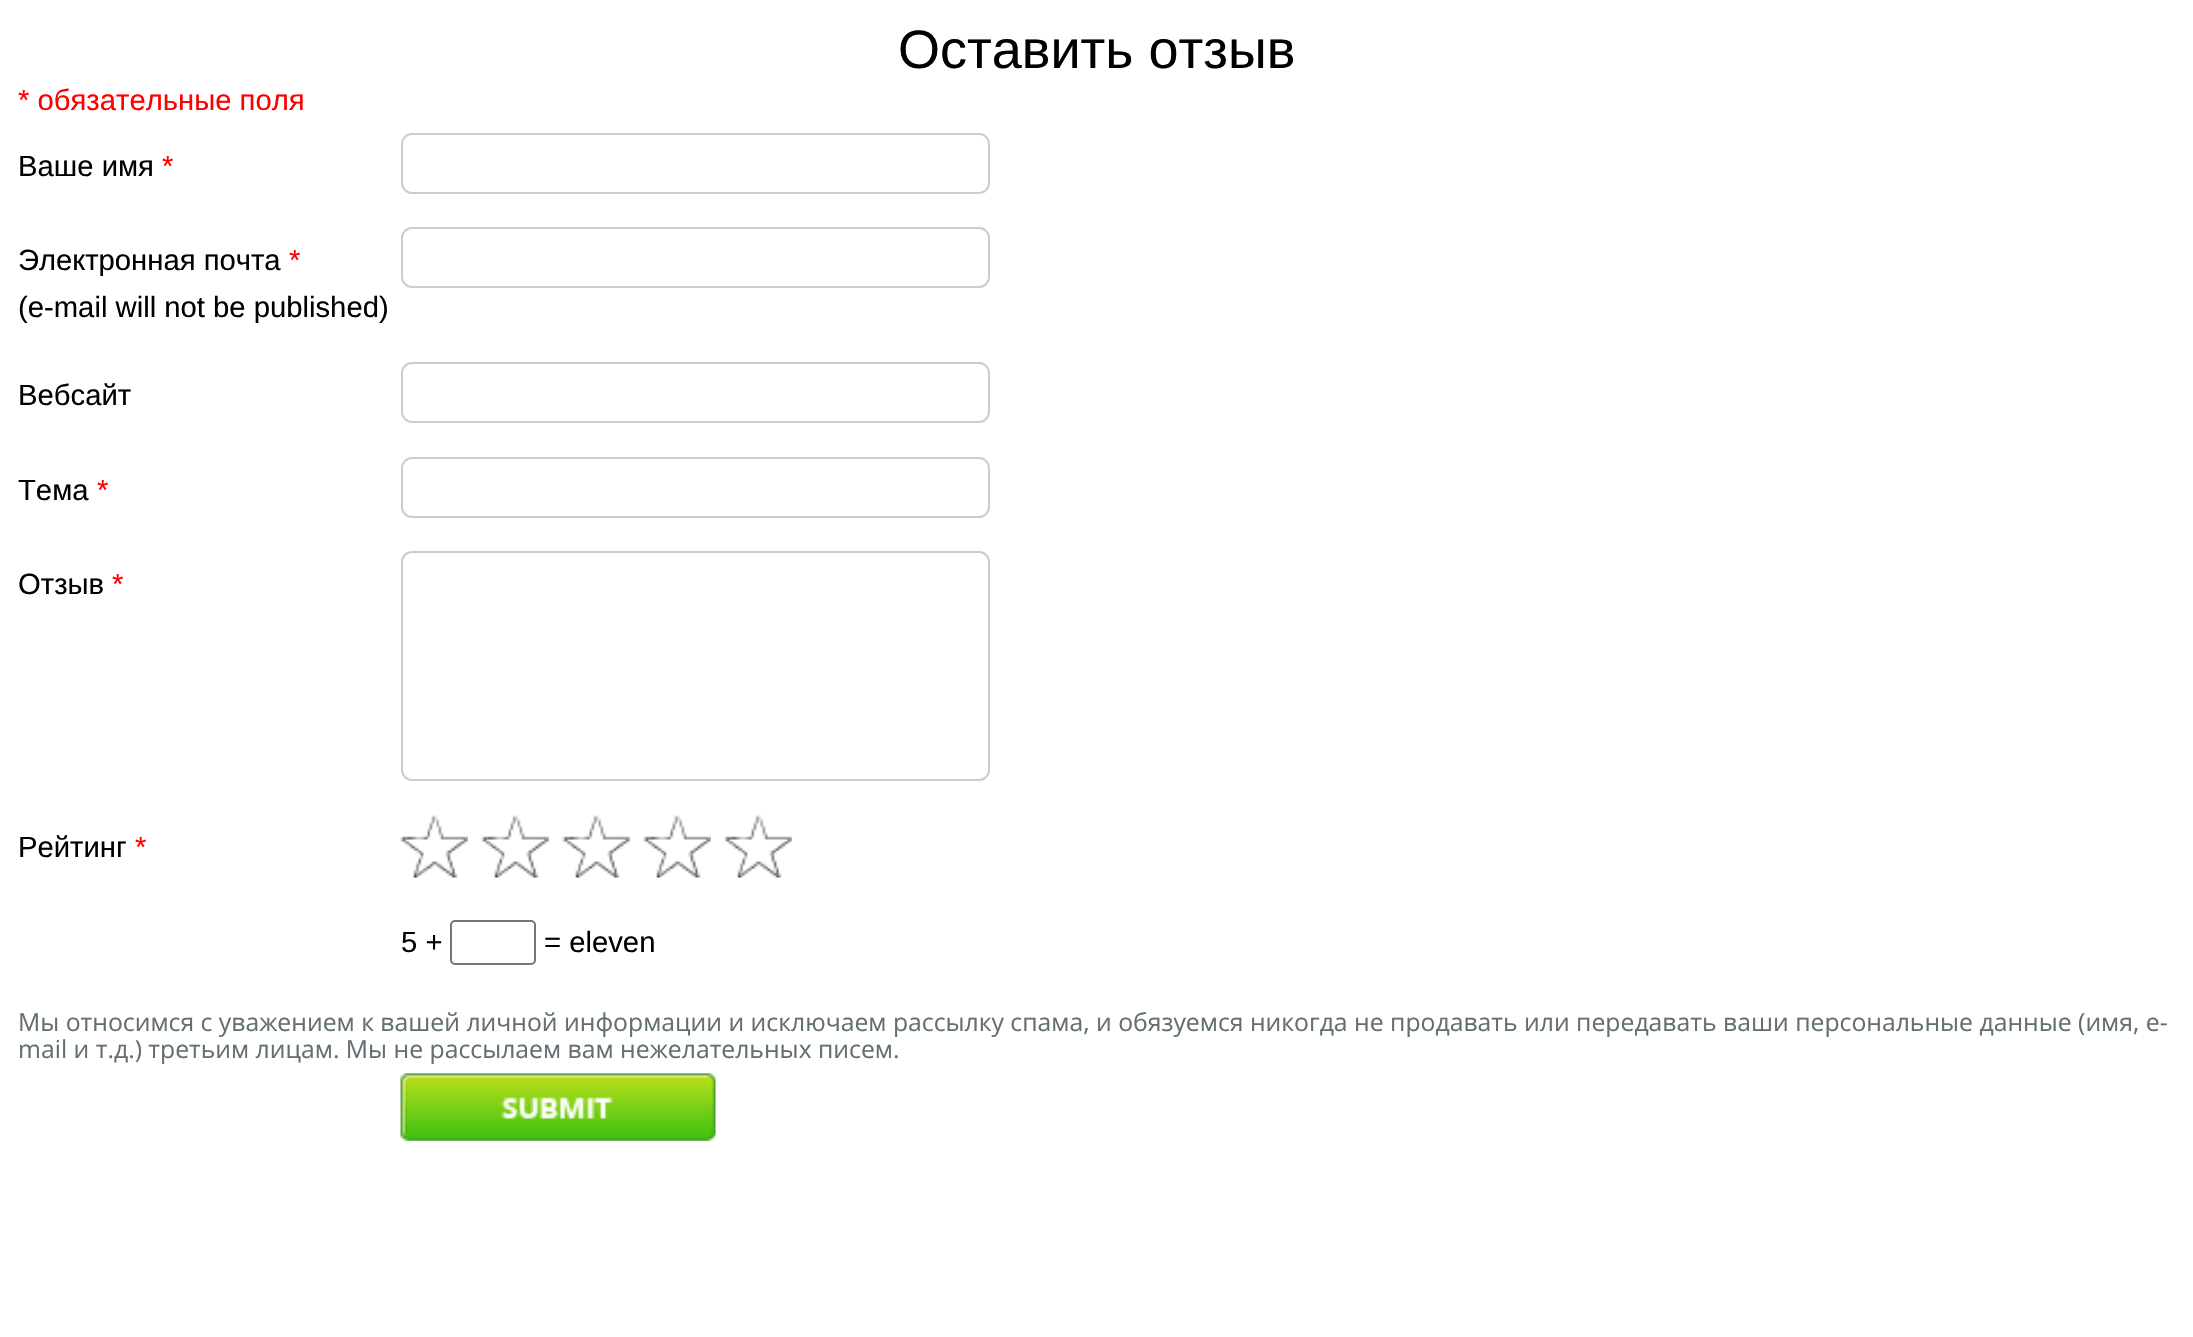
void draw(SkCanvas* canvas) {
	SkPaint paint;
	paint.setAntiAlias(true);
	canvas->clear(0xffffffff);
	SkFont f1(fontMgr->matchFamilyStyle("Liberation Sans", SkFontStyle::Normal()), 54);
	f1.setSubpixel(true);
	paint.setColor(0xff000000);
	canvas->drawString("Оставить отзыв", 898, 68, f1, paint);
	SkFont f2(fontMgr->matchFamilyStyle("Liberation Sans", SkFontStyle::Normal()), 29.25);
	f2.setSubpixel(true);
	paint.setColor(0xffff0000);
	canvas->drawString("* обязательные поля", 18, 110, f2, paint);
	paint.setColor(0xff000000);
	canvas->drawString("Ваше имя", 18, 176, f2, paint);
	paint.setColor(0xffff0000);
	canvas->drawString("*", 162, 176, f2, paint);
	paint.setStroke(true);
	paint.setStrokeWidth(2);
	paint.setColor(0xffcccccc);
	canvas->drawRoundRect(SkRect::MakeXYWH(402, 134, 587, 59), 10, 10, paint);
	paint.setStroke(false);
	paint.setColor(0xff000000);
	canvas->drawString("Электронная почта", 18, 270, f2, paint);
	paint.setColor(0xffff0000);
	canvas->drawString("*", 289, 270, f2, paint);
	paint.setStroke(true);
	paint.setColor(0xffcccccc);
	canvas->drawRoundRect(SkRect::MakeXYWH(402, 228, 587, 59), 10, 10, paint);
	paint.setStroke(false);
	paint.setColor(0xff000000);
	canvas->drawString("(e-mail will not be published)", 18, 317, f2, paint);
	canvas->drawString("Вебсайт", 18, 405, f2, paint);
	paint.setStroke(true);
	paint.setColor(0xffcccccc);
	canvas->drawRoundRect(SkRect::MakeXYWH(402, 363, 587, 59), 10, 10, paint);
	paint.setStroke(false);
	paint.setColor(0xff000000);
	canvas->drawString("Тема", 18, 500, f2, paint);
	paint.setColor(0xffff0000);
	canvas->drawString("*", 97, 500, f2, paint);
	paint.setStroke(true);
	paint.setColor(0xffcccccc);
	canvas->drawRoundRect(SkRect::MakeXYWH(402, 458, 587, 59), 10, 10, paint);
	paint.setStroke(false);
	paint.setColor(0xff000000);
	canvas->drawString("Отзыв", 18, 594, f2, paint);
	paint.setColor(0xffff0000);
	canvas->drawString("*", 112, 594, f2, paint);
	paint.setStroke(true);
	paint.setColor(0xffcccccc);
	canvas->drawRoundRect(SkRect::MakeXYWH(402, 552, 587, 228), 10, 10, paint);
	paint.setStroke(false);
	paint.setColor(0xff000000);
	canvas->drawString("Рейтинг", 18, 857, f2, paint);
	paint.setColor(0xffff0000);
	canvas->drawString("*", 135, 857, f2, paint);
	canvas->drawImageRect(SkImages::DeferredFromEncodedData(SkData::MakeFromFileName("img1.png")), SkRect::MakeXYWH(400, 815, 68, 63), SkSamplingOptions());
	canvas->drawImageRect(SkImages::DeferredFromEncodedData(SkData::MakeFromFileName("img2.png")), SkRect::MakeXYWH(481, 815, 68, 63), SkSamplingOptions());
	canvas->drawImageRect(SkImages::DeferredFromEncodedData(SkData::MakeFromFileName("img1.png")), SkRect::MakeXYWH(562, 815, 68, 63), SkSamplingOptions());
	canvas->drawImageRect(SkImages::DeferredFromEncodedData(SkData::MakeFromFileName("img3.png")), SkRect::MakeXYWH(643, 815, 68, 63), SkSamplingOptions());
	canvas->drawImageRect(SkImages::DeferredFromEncodedData(SkData::MakeFromFileName("img1.png")), SkRect::MakeXYWH(724, 815, 68, 63), SkSamplingOptions());
	paint.setColor(0xff000000);
	canvas->drawString("5 +", 401, 952, f2, paint);
	paint.setStroke(true);
	paint.setColor(0xff767676);
	canvas->drawRoundRect(SkRect::MakeXYWH(451, 921, 84, 43), 4, 4, paint);
	paint.setStroke(false);
	paint.setColor(0xff000000);
	canvas->drawString("= eleven", 544, 952, f2, paint);
	SkFont f3(fontMgr->matchFamilyStyle("Open Sans", SkFontStyle::Normal()), 24.75);
	f3.setSubpixel(true);
	paint.setColor(0xff636f72);
	canvas->drawString("Мы относимся с уважением к вашей личной информации и исключаем рассылку спама, и обязуемся никогда не продавать или передавать ваши персональные данные (имя, e-", 18, 1031, f3, paint);
	canvas->drawString("mail и т.д.) третьим лицам. Мы не рассылаем вам нежелательных писем.", 18, 1058, f3, paint);
	canvas->drawImageRect(SkImages::DeferredFromEncodedData(SkData::MakeFromFileName("img4.png")), SkRect::MakeXYWH(400, 1073, 316, 68), SkSamplingOptions());
}
